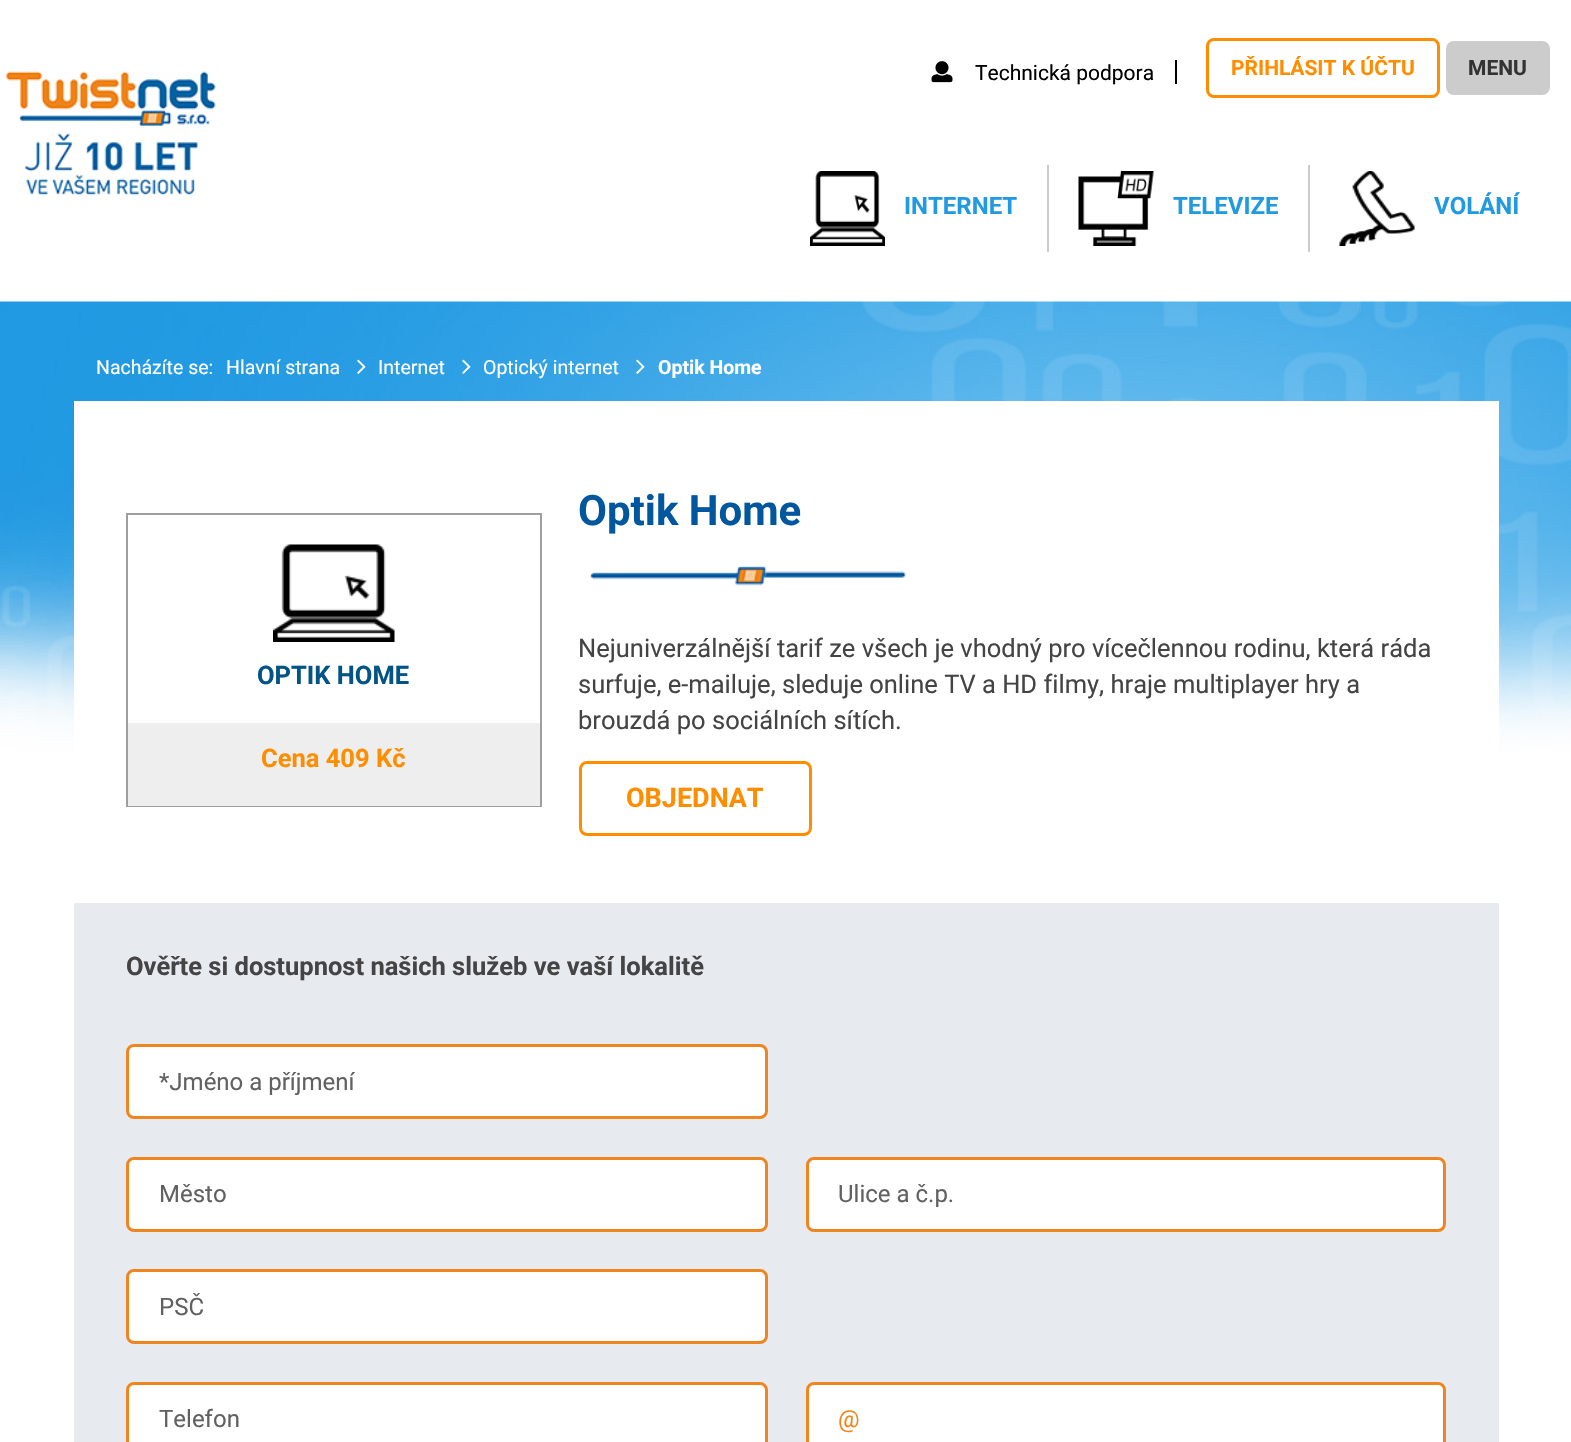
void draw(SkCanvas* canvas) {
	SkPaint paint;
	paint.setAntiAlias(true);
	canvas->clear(0xffffffff);
	paint.setColor(0xff000000);
	canvas->drawRect(SkRect::MakeXYWH(1175, 60, 2, 24), paint);
	canvas->drawImageRect(SkImages::DeferredFromEncodedData(SkData::MakeFromFileName("img1.png")), SkRect::MakeXYWH(931, 61, 22, 22), SkSamplingOptions());
	SkFont f1(fontMgr->matchFamilyStyle("Roboto", SkFontStyle::Normal()), 21);
	f1.setSubpixel(true);
	canvas->drawString("Technická podpora", 975, 80, f1, paint);
	paint.setStroke(true);
	paint.setStrokeWidth(3);
	paint.setColor(0xffff8d00);
	canvas->drawRoundRect(SkRect::MakeXYWH(1207.5, 39.5, 231, 57), 6.5, 6.5, paint);
	SkFont f2(fontMgr->matchFamilyStyle("Roboto", SkFontStyle::Bold()), 21);
	f2.setSubpixel(true);
	paint.setStroke(false);
	canvas->drawString("PŘIHLÁSIT K ÚČTU", 1231, 75, f2, paint);
	paint.setColor(0xffcccccc);
	canvas->drawRoundRect(SkRect::MakeXYWH(1446, 41, 104, 54), 8, 8, paint);
	paint.setColor(0xff333333);
	canvas->drawString("MENU", 1468, 75, f2, paint);
	canvas->drawImageRect(SkImages::DeferredFromEncodedData(SkData::MakeFromFileName("img2.png")), SkRect::MakeXYWH(5, 71, 211, 125), SkSamplingOptions());
	paint.setColor(0xffcccccc);
	canvas->drawRect(SkRect::MakeXYWH(1047, 165, 2, 87), paint);
	canvas->drawImageRect(SkImages::DeferredFromEncodedData(SkData::MakeFromFileName("img3.png")), SkRect::MakeXYWH(810, 171, 75, 75), SkSamplingOptions());
	SkFont f3(fontMgr->matchFamilyStyle("Roboto", SkFontStyle::Bold()), 24);
	f3.setSubpixel(true);
	paint.setColor(0xff219ae1);
	canvas->drawString("INTERNET", 904, 214, f3, paint);
	paint.setColor(0xffcccccc);
	canvas->drawRect(SkRect::MakeXYWH(1308, 165, 2, 87), paint);
	canvas->drawImageRect(SkImages::DeferredFromEncodedData(SkData::MakeFromFileName("img4.png")), SkRect::MakeXYWH(1078, 171, 76, 75), SkSamplingOptions());
	paint.setColor(0xff219ae1);
	canvas->drawString("TELEVIZE", 1173, 214, f3, paint);
	canvas->drawImageRect(SkImages::DeferredFromEncodedData(SkData::MakeFromFileName("img5.png")), SkRect::MakeXYWH(1339, 171, 76, 75), SkSamplingOptions());
	canvas->drawString("VOLÁNÍ", 1434, 214, f3, paint);
	canvas->drawImageRect(SkImages::DeferredFromEncodedData(SkData::MakeFromFileName("img6.png")), SkRect::MakeXYWH(0, 301, 1571, 451), SkSamplingOptions());
	SkFont f4(fontMgr->matchFamilyStyle("Roboto", SkFontStyle::Normal()), 19.5);
	f4.setSubpixel(true);
	paint.setColor(0xffffffff);
	canvas->drawString("Nacházíte se:", 96, 374, f4, paint);
	canvas->drawString("Hlavní strana", 226, 374, f4, paint);
	canvas->drawImageRect(SkImages::DeferredFromEncodedData(SkData::MakeFromFileName("img7.png")), SkRect::MakeXYWH(357, 359, 9, 15), SkSamplingOptions());
	canvas->drawString("Internet", 378, 374, f4, paint);
	canvas->drawImageRect(SkImages::DeferredFromEncodedData(SkData::MakeFromFileName("img8.png")), SkRect::MakeXYWH(462, 359, 9, 15), SkSamplingOptions());
	canvas->drawString("Optický internet", 483, 374, f4, paint);
	canvas->drawImageRect(SkImages::DeferredFromEncodedData(SkData::MakeFromFileName("img9.png")), SkRect::MakeXYWH(636, 359, 9, 15), SkSamplingOptions());
	SkFont f5(fontMgr->matchFamilyStyle("Roboto", SkFontStyle::Bold()), 19.5);
	f5.setSubpixel(true);
	canvas->drawString("Optik Home", 658, 374, f5, paint);
	canvas->drawRect(SkRect::MakeXYWH(74, 401, 1425, 351), paint);
	paint.setStroke(true);
	paint.setStrokeWidth(2);
	paint.setColor(0xff9e9e9e);
	canvas->drawRect(SkRect::MakeXYWH(127, 514, 414, 292), paint);
	canvas->drawImageRect(SkImages::DeferredFromEncodedData(SkData::MakeFromFileName("img10.png")), SkRect::MakeXYWH(273, 544, 122, 98), SkSamplingOptions());
	SkFont f6(fontMgr->matchFamilyStyle("Roboto", SkFontStyle::Bold()), 25.5);
	f6.setSubpixel(true);
	paint.setStroke(false);
	paint.setColor(0xff025487);
	canvas->drawString("OPTIK HOME", 257, 684, f6, paint);
	paint.setColor(0xffeeeeee);
	canvas->drawRect(SkRect::MakeXYWH(128, 723, 412, 83), paint);
	paint.setColor(0xffff8d00);
	canvas->drawString("Cena 409 Kč", 261, 767, f6, paint);
	SkFont f7(fontMgr->matchFamilyStyle("Roboto", SkFontStyle::Bold()), 42);
	f7.setSubpixel(true);
	paint.setColor(0xff00579d);
	canvas->drawString("Optik Home", 578, 525, f7, paint);
	canvas->drawImageRect(SkImages::DeferredFromEncodedData(SkData::MakeFromFileName("img11.png")), SkRect::MakeXYWH(589, 566, 318, 20), SkSamplingOptions());
	SkFont f8(fontMgr->matchFamilyStyle("Roboto", SkFontStyle::Normal()), 25.5);
	f8.setSubpixel(true);
	paint.setColor(0xff444444);
	canvas->drawString("Nejuniverzálnější tarif ze všech je vhodný pro vícečlennou rodinu, která ráda", 578, 657, f8, paint);
	canvas->drawString("surfuje, e-mailuje, sleduje online TV a HD filmy, hraje multiplayer hry a", 578, 693, f8, paint);
	canvas->drawString("brouzdá po sociálních sítích.", 578, 729, f8, paint);
	paint.setStroke(true);
	paint.setStrokeWidth(3);
	paint.setColor(0xffff8d00);
	canvas->drawRoundRect(SkRect::MakeXYWH(580.5, 762.5, 230, 72), 6.5, 6.5, paint);
	SkFont f9(fontMgr->matchFamilyStyle("Roboto", SkFontStyle::Bold()), 27);
	f9.setSubpixel(true);
	paint.setStroke(false);
	canvas->drawString("OBJEDNAT", 626, 807, f9, paint);
	paint.setColor(0xffe7ebf0);
	canvas->drawRect(SkRect::MakeXYWH(74, 903, 1425, 539), paint);
	paint.setColor(0xff444444);
	canvas->drawString("Ověřte si dostupnost našich služeb ve vaší lokalitě", 126, 975, f6, paint);
	paint.setColor(0xffffffff);
	canvas->drawRoundRect(SkRect::MakeXYWH(127.5, 1045.5, 639, 72), 6.5, 6.5, paint);
	paint.setStroke(true);
	paint.setColor(0xffef851e);
	canvas->drawRoundRect(SkRect::MakeXYWH(127.5, 1045.5, 639, 72), 6.5, 6.5, paint);
	SkFont f10(fontMgr->matchFamilyStyle("Roboto", SkFontStyle::Normal()), 24);
	f10.setSubpixel(true);
	paint.setStroke(false);
	paint.setColor(0xff616161);
	canvas->drawString("*Jméno a příjmení", 159, 1090, f10, paint);
	paint.setColor(0xffffffff);
	canvas->drawRoundRect(SkRect::MakeXYWH(127.5, 1158.5, 639, 72), 6.5, 6.5, paint);
	paint.setStroke(true);
	paint.setColor(0xffef851e);
	canvas->drawRoundRect(SkRect::MakeXYWH(127.5, 1158.5, 639, 72), 6.5, 6.5, paint);
	paint.setStroke(false);
	paint.setColor(0xff616161);
	canvas->drawString("Město", 159, 1202, f10, paint);
	paint.setColor(0xffffffff);
	canvas->drawRoundRect(SkRect::MakeXYWH(807.5, 1158.5, 637, 72), 6.5, 6.5, paint);
	paint.setStroke(true);
	paint.setColor(0xffef851e);
	canvas->drawRoundRect(SkRect::MakeXYWH(807.5, 1158.5, 637, 72), 6.5, 6.5, paint);
	paint.setStroke(false);
	paint.setColor(0xff616161);
	canvas->drawString("Ulice a č.p.", 838, 1202, f10, paint);
	paint.setColor(0xffffffff);
	canvas->drawRoundRect(SkRect::MakeXYWH(127.5, 1270.5, 639, 72), 6.5, 6.5, paint);
	paint.setStroke(true);
	paint.setColor(0xffef851e);
	canvas->drawRoundRect(SkRect::MakeXYWH(127.5, 1270.5, 639, 72), 6.5, 6.5, paint);
	paint.setStroke(false);
	paint.setColor(0xff616161);
	canvas->drawString("PSČ", 159, 1315, f10, paint);
	paint.setColor(0xffffffff);
	canvas->drawRoundRect(SkRect::MakeXYWH(127.5, 1383.5, 639, 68), 6.5, 6.5, paint);
	paint.setStroke(true);
	paint.setColor(0xffef851e);
	canvas->drawRoundRect(SkRect::MakeXYWH(127.5, 1383.5, 639, 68), 6.5, 6.5, paint);
	paint.setStroke(false);
	paint.setColor(0xff616161);
	canvas->drawString("Telefon", 159, 1427, f10, paint);
	paint.setColor(0xffffffff);
	canvas->drawRoundRect(SkRect::MakeXYWH(807.5, 1383.5, 637, 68), 6.5, 6.5, paint);
	paint.setStroke(true);
	paint.setColor(0xffef851e);
	canvas->drawRoundRect(SkRect::MakeXYWH(807.5, 1383.5, 637, 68), 6.5, 6.5, paint);
	paint.setStroke(false);
	canvas->drawString("@", 838, 1427, f10, paint);
}
